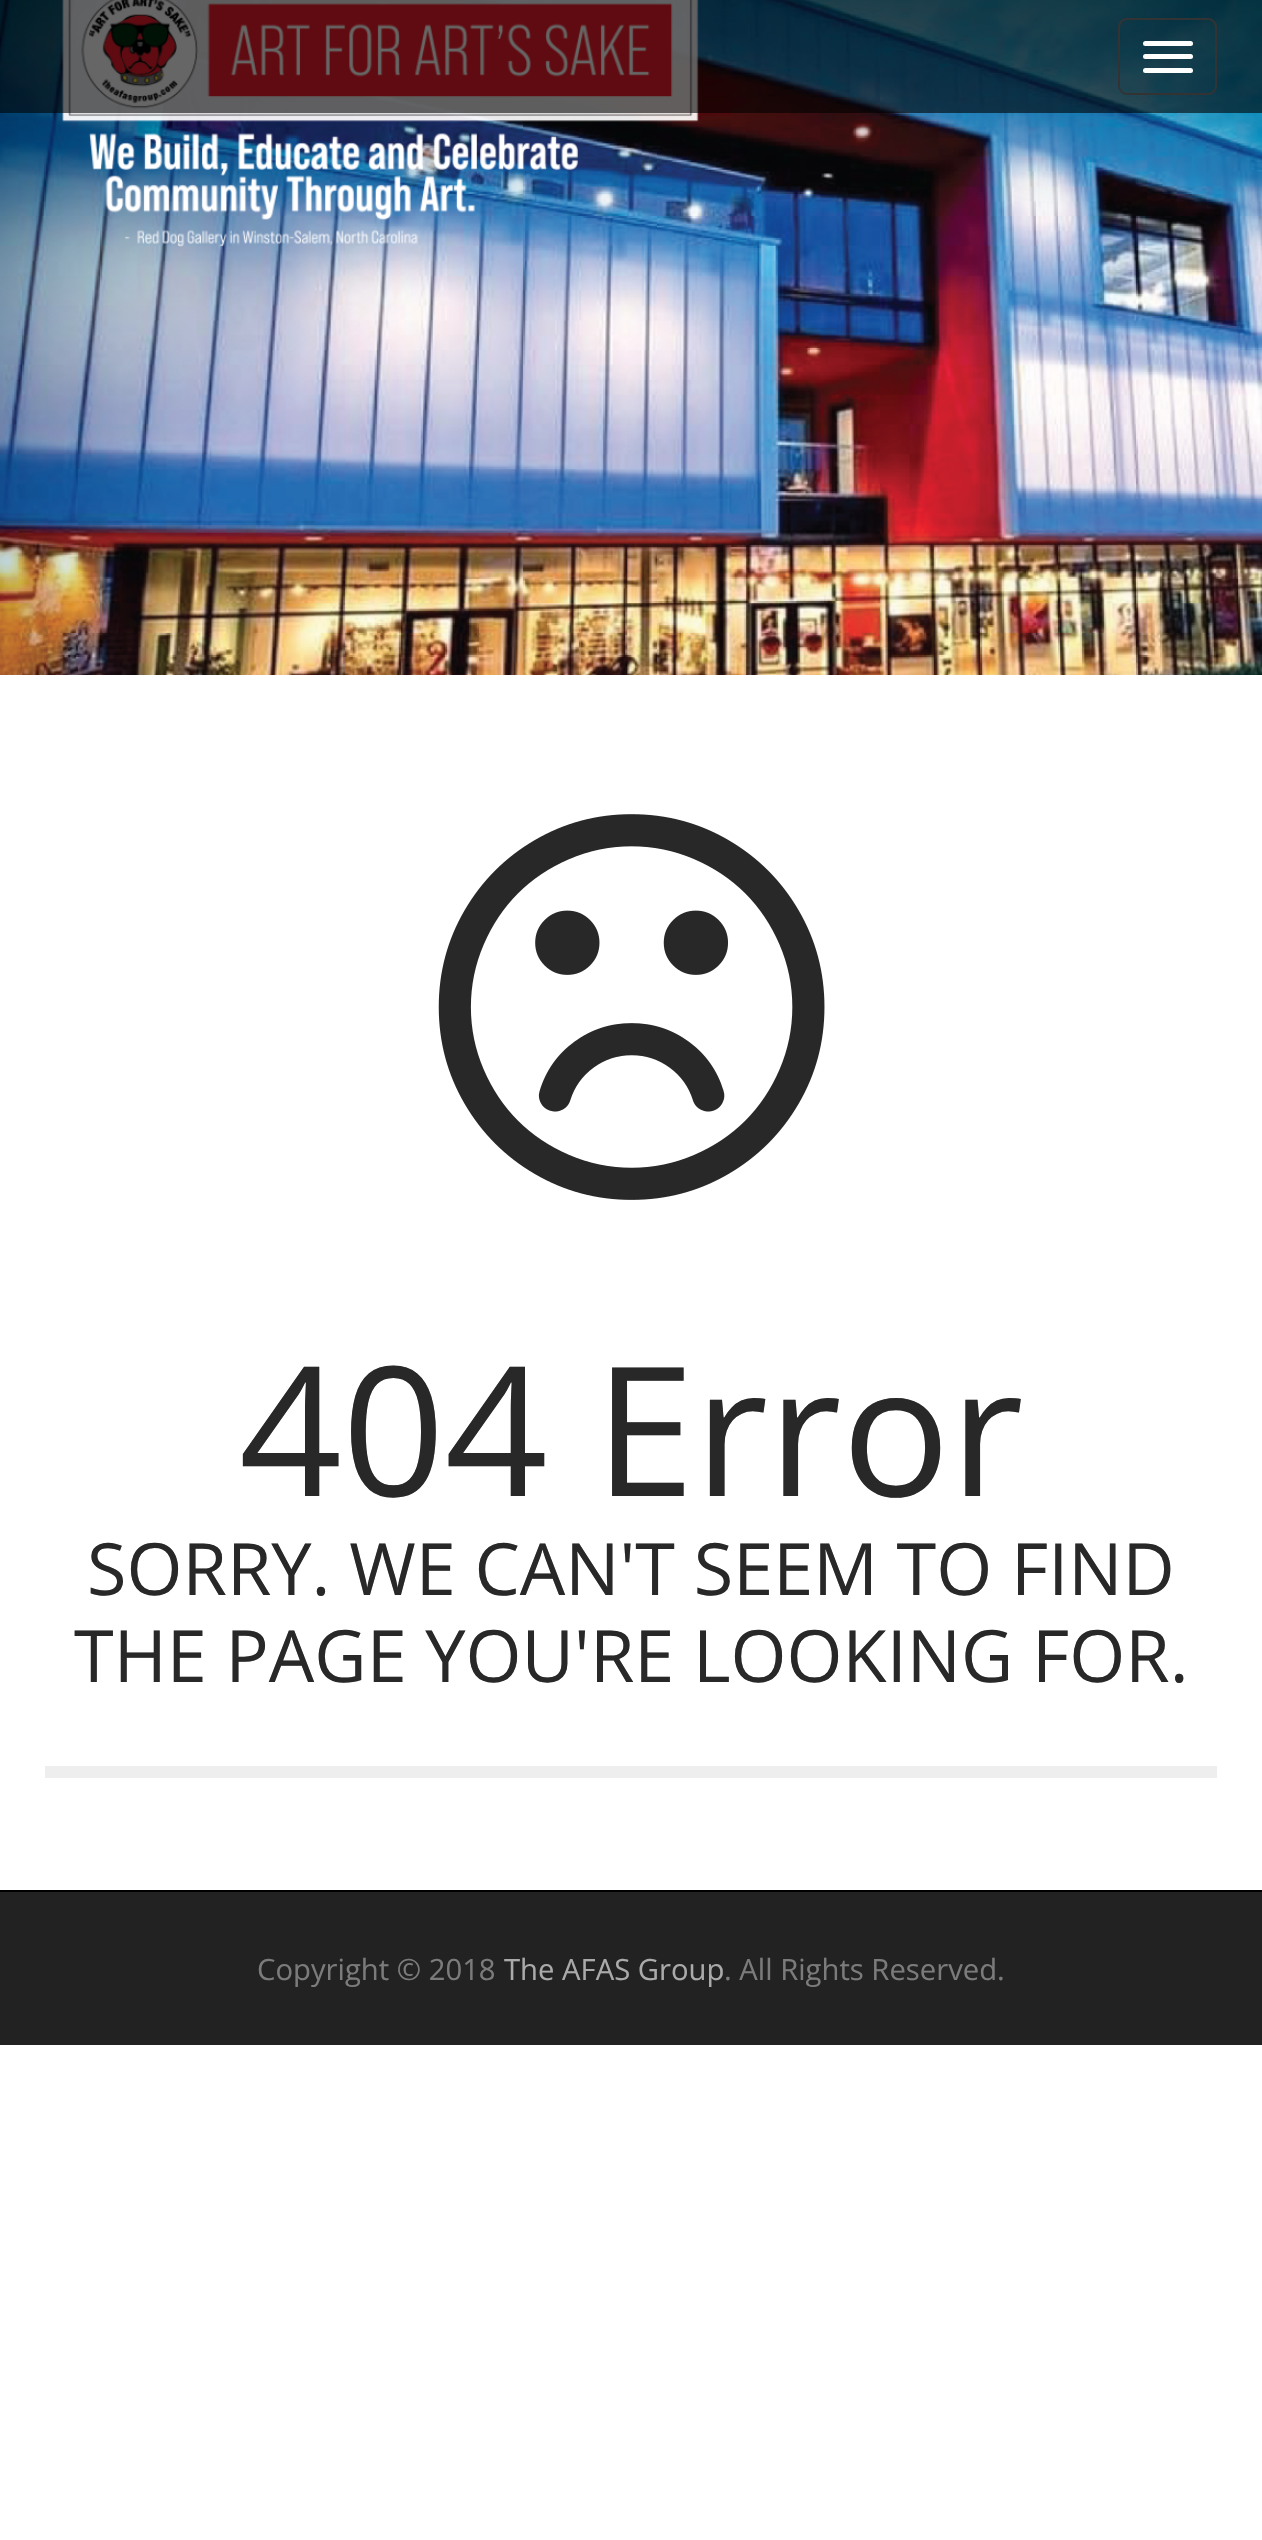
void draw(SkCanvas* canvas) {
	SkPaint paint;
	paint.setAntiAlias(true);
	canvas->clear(0xffffffff);
	canvas->drawImageRect(SkImages::DeferredFromEncodedData(SkData::MakeFromFileName("img1.png")), SkRect::MakeXYWH(0, 0, 1262, 675), SkSamplingOptions());
	paint.setColor(0x99000000);
	canvas->drawRect(SkRect::MakeXYWH(0, 0, 1262, 113), paint);
	paint.setStroke(true);
	paint.setStrokeWidth(2);
	paint.setColor(0xff333333);
	canvas->drawRoundRect(SkRect::MakeXYWH(1119, 19, 97, 75), 8, 8, paint);
	paint.setStroke(false);
	paint.setColor(0xffffffff);
	canvas->drawRoundRect(SkRect::MakeXYWH(1143, 41, 50, 5), 2.5, 2.5, paint);
	canvas->drawRoundRect(SkRect::MakeXYWH(1143, 54, 50, 5), 2.5, 2.5, paint);
	canvas->drawRoundRect(SkRect::MakeXYWH(1143, 68, 50, 5), 2.5, 2.5, paint);
	paint.setColor(0xffeeeeee);
	canvas->drawRect(SkRect::MakeXYWH(45, 1766, 1172, 12), paint);
	canvas->drawImageRect(SkImages::DeferredFromEncodedData(SkData::MakeFromFileName("img2.png")), SkRect::MakeXYWH(438, 814, 387, 386), SkSamplingOptions());
	SkFont f1(fontMgr->matchFamilyStyle("Open Sans", SkFontStyle::Normal()), 180);
	f1.setSubpixel(true);
	paint.setColor(0xff282828);
	canvas->drawString("404 Error", 239, 1496, f1, paint);
	SkFont f2(fontMgr->matchFamilyStyle("Open Sans", SkFontStyle::Normal()), 72);
	f2.setSubpixel(true);
	canvas->drawString("SORRY. WE CAN'T SEEM TO FIND", 87, 1595, f2, paint);
	canvas->drawString("THE PAGE YOU'RE LOOKING FOR.", 74, 1682, f2, paint);
	paint.setColor(0xff222222);
	canvas->drawRect(SkRect::MakeXYWH(0, 1892, 1262, 153), paint);
	paint.setColor(0xff000000);
	canvas->drawRect(SkRect::MakeXYWH(0, 1890, 1262, 2), paint);
	SkFont f3(fontMgr->matchFamilyStyle("Open Sans", SkFontStyle::Normal()), 29.25);
	f3.setSubpixel(true);
	paint.setColor(0xff7b7b7b);
	canvas->drawString("Copyright © 2018", 257, 1980, f3, paint);
	paint.setColor(0xffaaaaaa);
	canvas->drawString("The AFAS Group", 504, 1980, f3, paint);
	paint.setColor(0xff7b7b7b);
	canvas->drawString(". All Rights Reserved.", 724, 1980, f3, paint);
}
